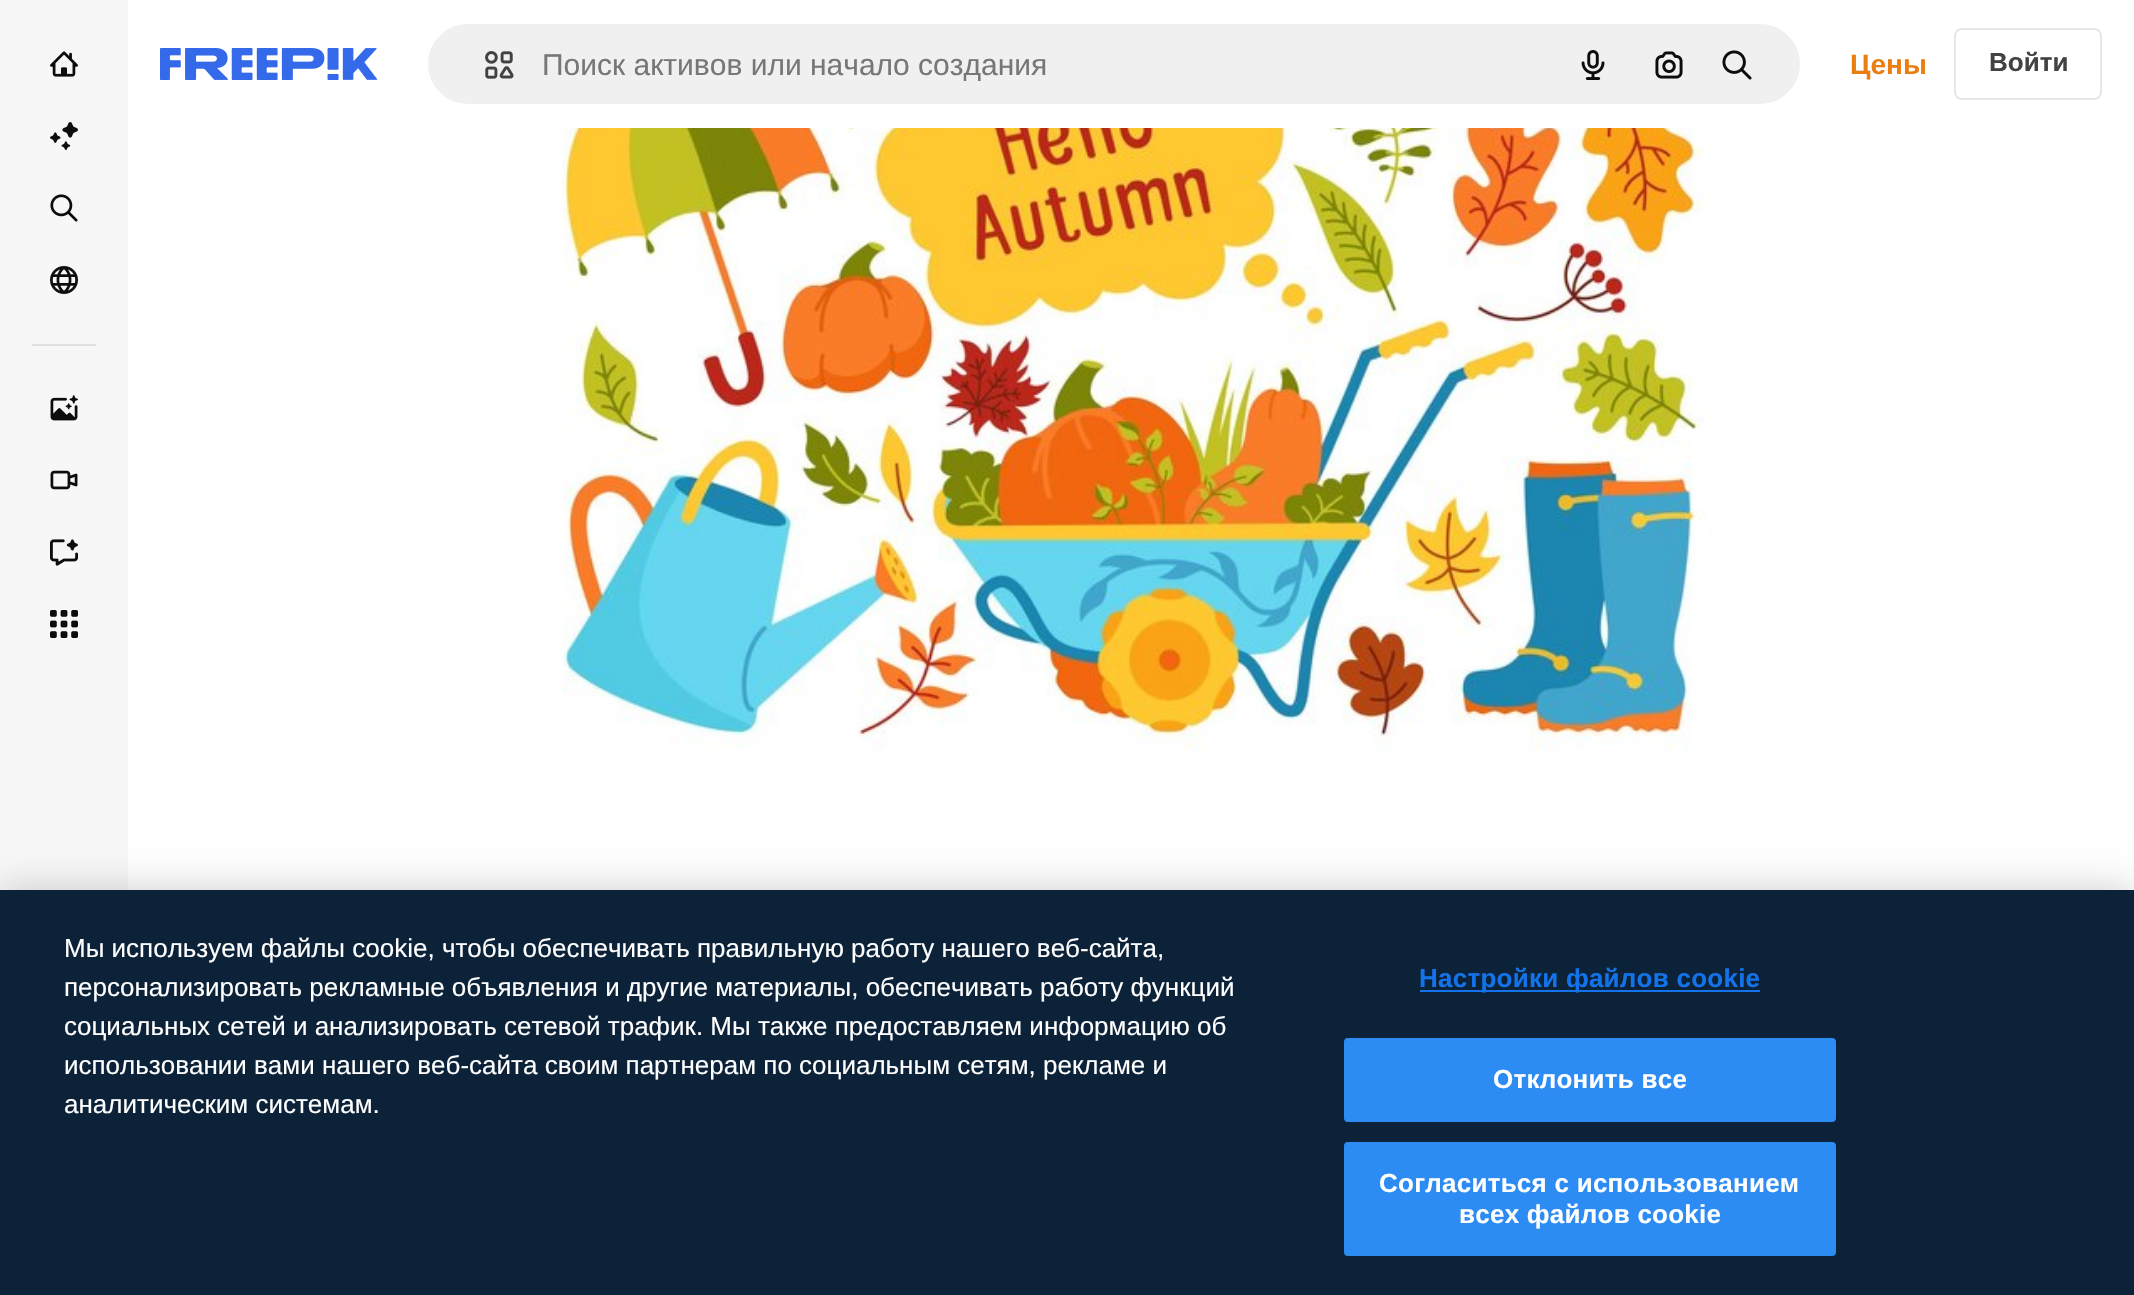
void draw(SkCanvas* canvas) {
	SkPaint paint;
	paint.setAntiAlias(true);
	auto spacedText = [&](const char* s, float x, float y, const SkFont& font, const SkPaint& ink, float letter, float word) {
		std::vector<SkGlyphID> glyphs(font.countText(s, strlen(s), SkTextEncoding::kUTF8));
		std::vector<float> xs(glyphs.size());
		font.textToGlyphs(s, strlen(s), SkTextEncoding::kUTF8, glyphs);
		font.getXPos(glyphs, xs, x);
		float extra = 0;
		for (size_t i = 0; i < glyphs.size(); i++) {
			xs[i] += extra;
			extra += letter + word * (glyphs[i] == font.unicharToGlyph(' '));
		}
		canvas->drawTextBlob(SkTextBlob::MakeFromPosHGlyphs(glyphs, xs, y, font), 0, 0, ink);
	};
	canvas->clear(0xffffffff);
	paint.setColor(0xfff7f7f7);
	canvas->drawRect(SkRect::MakeXYWH(0, 0, 128, 890), paint);
	canvas->drawImageRect(SkImages::DeferredFromEncodedData(SkData::MakeFromFileName("img1.png")), SkRect::MakeXYWH(50, 51, 28, 26), SkSamplingOptions());
	canvas->drawImageRect(SkImages::DeferredFromEncodedData(SkData::MakeFromFileName("img2.png")), SkRect::MakeXYWH(50, 122, 28, 28), SkSamplingOptions());
	canvas->drawImageRect(SkImages::DeferredFromEncodedData(SkData::MakeFromFileName("img3.png")), SkRect::MakeXYWH(50, 194, 28, 28), SkSamplingOptions());
	canvas->drawImageRect(SkImages::DeferredFromEncodedData(SkData::MakeFromFileName("img4.png")), SkRect::MakeXYWH(50, 266, 28, 28), SkSamplingOptions());
	paint.setColor(0xffe0e0e0);
	canvas->drawRect(SkRect::MakeXYWH(32, 344, 64, 2), paint);
	canvas->drawImageRect(SkImages::DeferredFromEncodedData(SkData::MakeFromFileName("img5.png")), SkRect::MakeXYWH(50, 395, 28, 26), SkSamplingOptions());
	canvas->drawImageRect(SkImages::DeferredFromEncodedData(SkData::MakeFromFileName("img6.png")), SkRect::MakeXYWH(50, 470, 28, 20), SkSamplingOptions());
	canvas->drawImageRect(SkImages::DeferredFromEncodedData(SkData::MakeFromFileName("img7.png")), SkRect::MakeXYWH(50, 539, 28, 27), SkSamplingOptions());
	canvas->drawImageRect(SkImages::DeferredFromEncodedData(SkData::MakeFromFileName("img8.png")), SkRect::MakeXYWH(50, 610, 28, 28), SkSamplingOptions());
	canvas->drawImageRect(SkImages::DeferredFromEncodedData(SkData::MakeFromFileName("img9.png")), SkRect::MakeXYWH(160, 48, 218, 32), SkSamplingOptions());
	paint.setColor(0xfff0f0f0);
	canvas->drawRoundRect(SkRect::MakeXYWH(427, 23, 1374, 82), 41, 41, paint);
	paint.setStroke(true);
	paint.setStrokeWidth(2);
	paint.setColor(0xffffffff);
	canvas->drawRoundRect(SkRect::MakeXYWH(427, 23, 1374, 82), 41, 41, paint);
	canvas->drawImageRect(SkImages::DeferredFromEncodedData(SkData::MakeFromFileName("img10.png")), SkRect::MakeXYWH(485, 51, 29, 28), SkSamplingOptions());
	SkFont f1(fontMgr->matchFamilyStyle("Liberation Sans", SkFontStyle::Normal()), 30);
	f1.setSubpixel(true);
	paint.setStroke(false);
	paint.setColor(0xff777777);
	canvas->drawString("Поиск активов или начало создания", 542, 75, f1, paint);
	canvas->drawImageRect(SkImages::DeferredFromEncodedData(SkData::MakeFromFileName("img11.png")), SkRect::MakeXYWH(1581, 50, 24, 30), SkSamplingOptions());
	canvas->drawImageRect(SkImages::DeferredFromEncodedData(SkData::MakeFromFileName("img12.png")), SkRect::MakeXYWH(1655, 51, 28, 28), SkSamplingOptions());
	canvas->drawImageRect(SkImages::DeferredFromEncodedData(SkData::MakeFromFileName("img13.png")), SkRect::MakeXYWH(1722, 50, 30, 30), SkSamplingOptions());
	SkFont f2(fontMgr->matchFamilyStyle("Liberation Sans", SkFontStyle::Bold()), 28);
	f2.setSubpixel(true);
	paint.setColor(0xffea7e11);
	canvas->drawString("Цены", 1850, 74, f2, paint);
	paint.setStroke(true);
	paint.setColor(0xffe7e7e7);
	canvas->drawRoundRect(SkRect::MakeXYWH(1955, 29, 146, 70), 7, 7, paint);
	SkFont f3(fontMgr->matchFamilyStyle("Liberation Sans", SkFontStyle::Bold()), 26);
	f3.setSubpixel(true);
	paint.setStroke(false);
	paint.setColor(0xff424242);
	canvas->drawString("Войти", 1989, 71, f3, paint);
	canvas->drawImageRect(SkImages::DeferredFromEncodedData(SkData::MakeFromFileName("img14.png")), SkRect::MakeXYWH(562, 128, 1151, 623), SkSamplingOptions());
	paint.setColor(0x33000000);
	paint.setMaskFilter(SkMaskFilter::MakeBlur(kNormal_SkBlurStyle, 18));
	canvas->drawRect(SkRect::MakeXYWH(0, 890, 2134, 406), paint);
	paint.setMaskFilter(nullptr);
	paint.setColor(0xff0b2239);
	canvas->drawRect(SkRect::MakeXYWH(0, 890, 2134, 405), paint);
	SkFont f4(fontMgr->matchFamilyStyle("Liberation Sans", SkFontStyle::Normal()), 26);
	f4.setSubpixel(true);
	paint.setColor(0xffffffff);
	canvas->drawString("Мы используем файлы cookie, чтобы обеспечивать правильную работу нашего веб-сайта,", 64, 957, f4, paint);
	canvas->drawString("персонализировать рекламные объявления и другие материалы, обеспечивать работу функций", 64, 996, f4, paint);
	canvas->drawString("социальных сетей и анализировать сетевой трафик. Мы также предоставляем информацию об", 64, 1035, f4, paint);
	canvas->drawString("использовании вами нашего веб-сайта своим партнерам по социальным сетям, рекламе и", 64, 1074, f4, paint);
	canvas->drawString("аналитическим системам.", 64, 1113, f4, paint);
	paint.setColor(0xff1273eb);
	canvas->drawRect(SkRect::MakeXYWH(1420, 990, 340, 2), paint);
	spacedText("Настройки файлов cookie", 1419, 987, f3, paint, 0.25, 0);
	paint.setColor(0xff2c8cf4);
	canvas->drawRoundRect(SkRect::MakeXYWH(1345, 1039, 490, 82), 3, 3, paint);
	paint.setStroke(true);
	canvas->drawRoundRect(SkRect::MakeXYWH(1345, 1039, 490, 82), 3, 3, paint);
	paint.setStroke(false);
	paint.setColor(0xffffffff);
	spacedText("Отклонить все", 1493, 1088, f3, paint, 0.25, 0);
	paint.setColor(0xff2c8cf4);
	canvas->drawRoundRect(SkRect::MakeXYWH(1345, 1143, 490, 112), 3, 3, paint);
	paint.setStroke(true);
	canvas->drawRoundRect(SkRect::MakeXYWH(1345, 1143, 490, 112), 3, 3, paint);
	paint.setStroke(false);
	paint.setColor(0xffffffff);
	spacedText("Согласиться с использованием", 1379, 1192, f3, paint, 0.25, 0);
	spacedText("всех файлов cookie", 1459, 1223, f3, paint, 0.25, 0);
}
